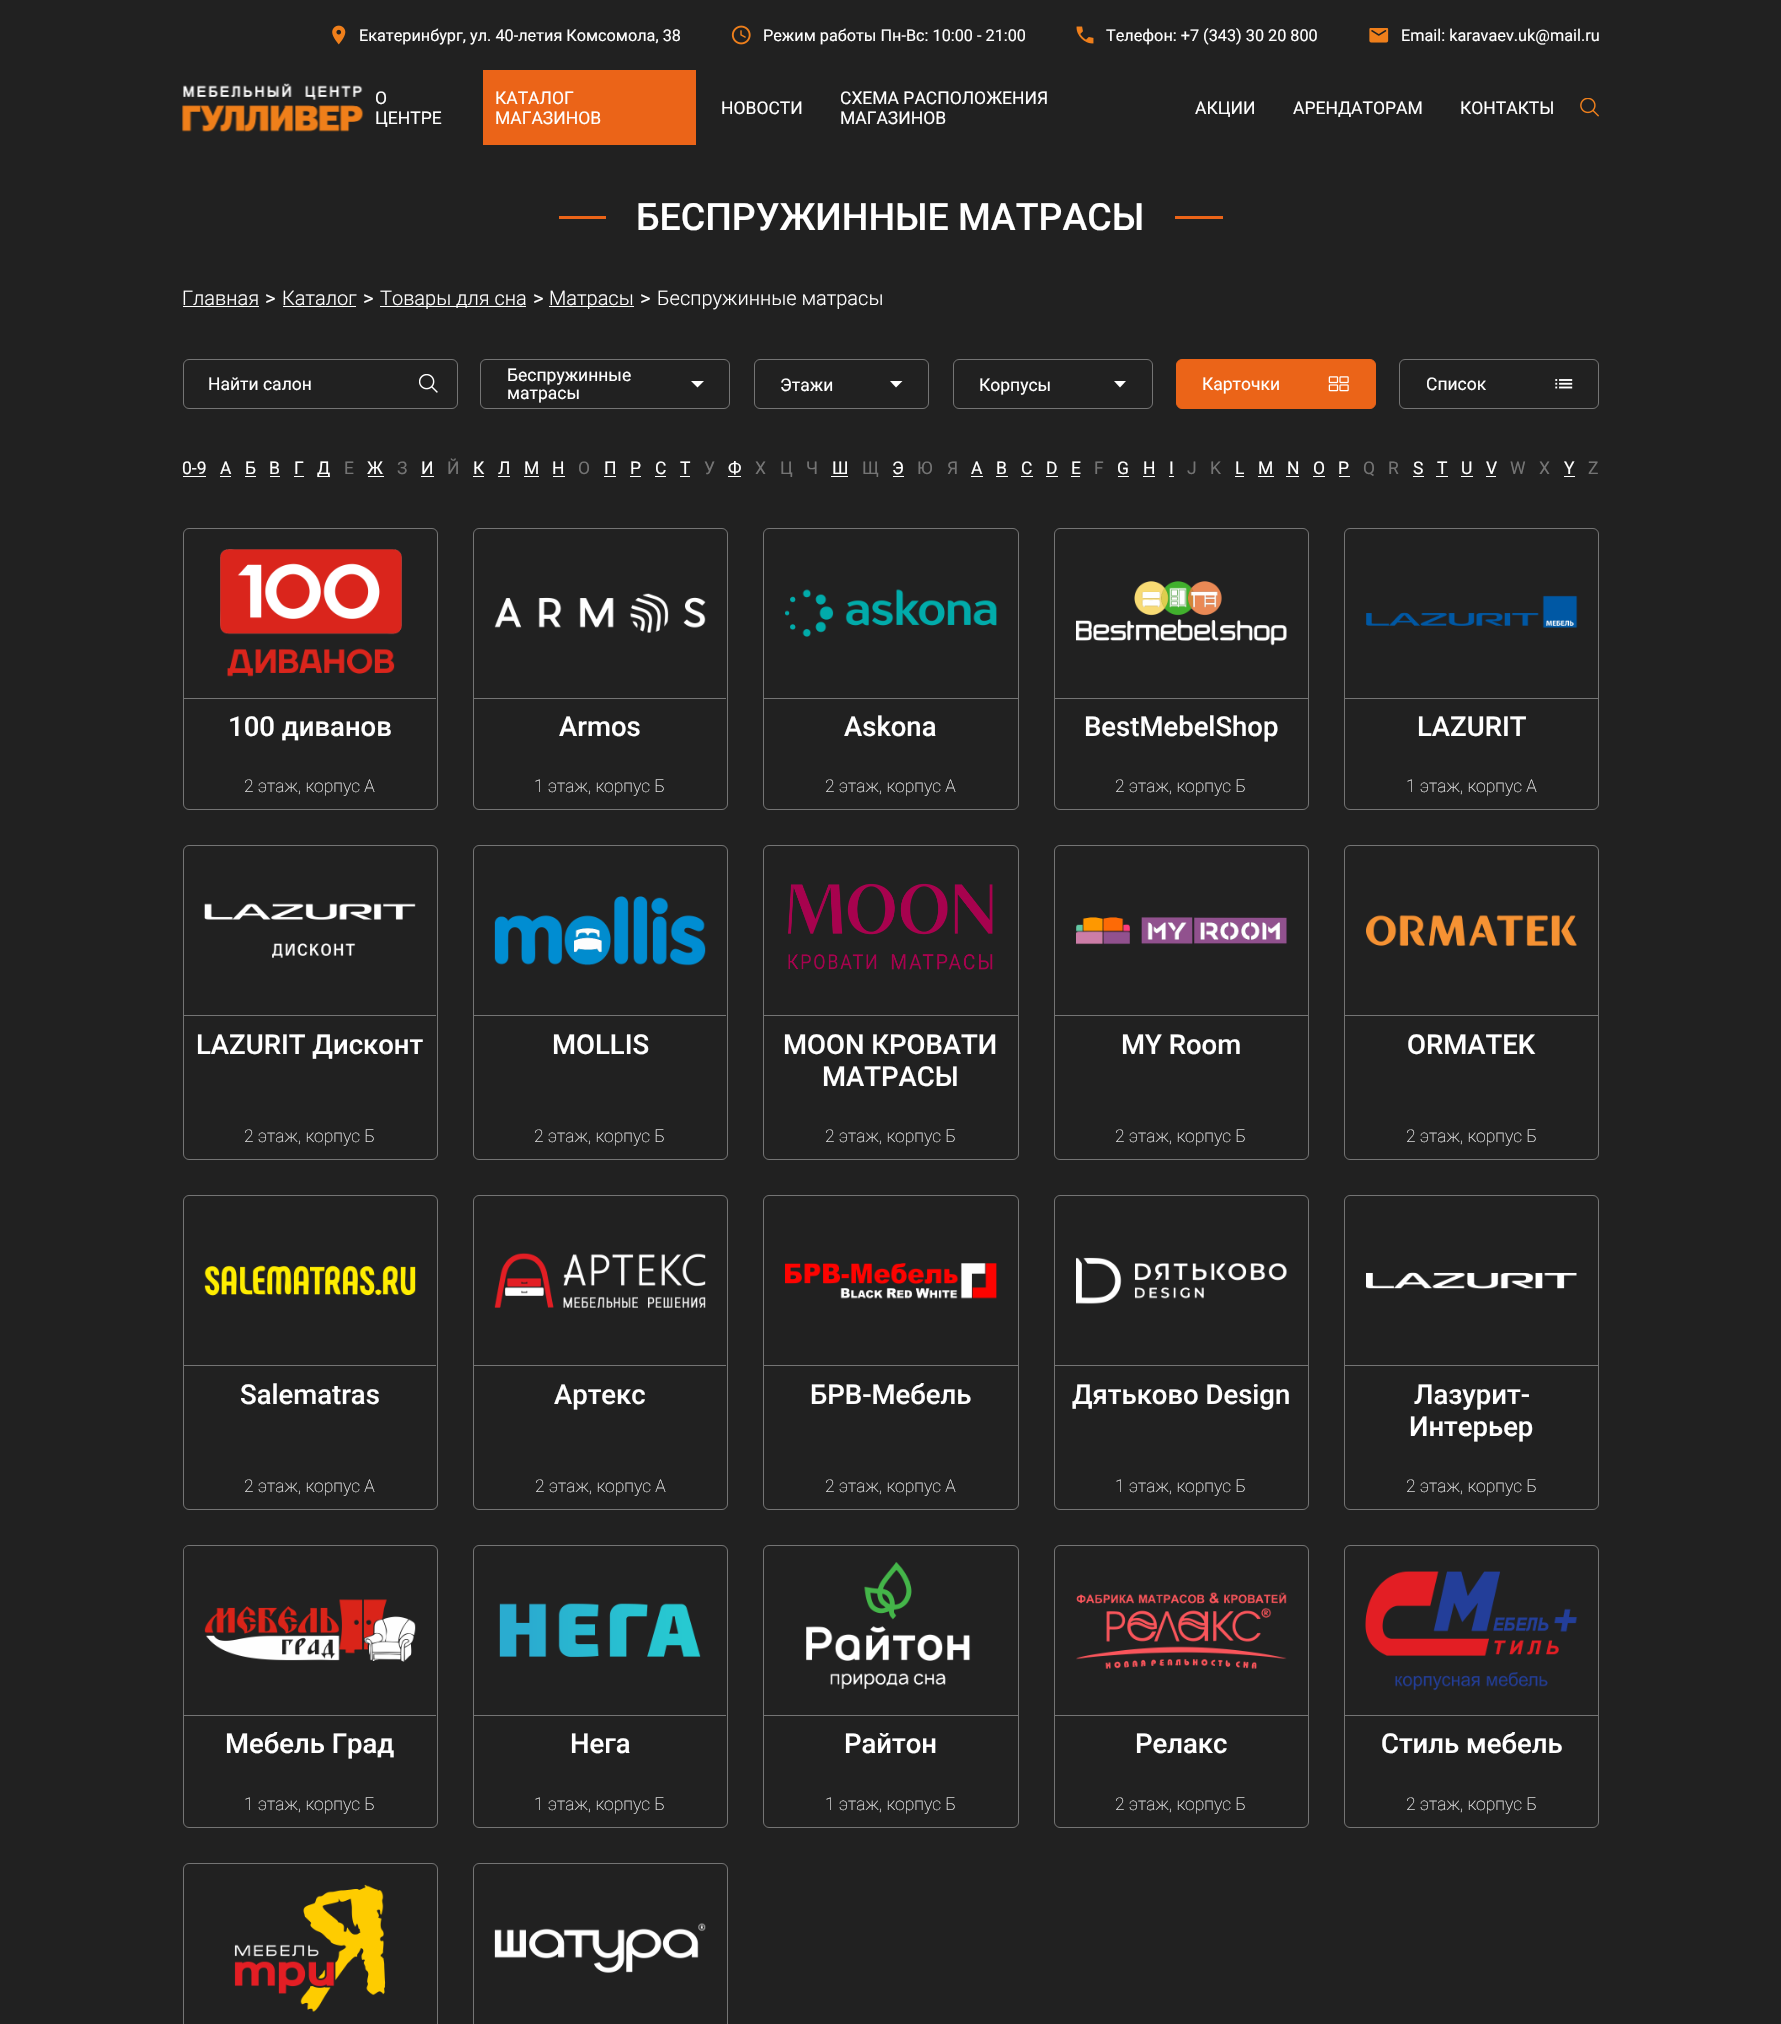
void draw(SkCanvas* canvas) {
	SkPaint paint;
	paint.setAntiAlias(true);
	auto svgPath = [&](const char* data, bool evenOdd = false) {
		SkPath result = *SkParsePath::FromSVGString(data);
		if (evenOdd) result.setFillType(SkPathFillType::kEvenOdd);
		return result;
	};
	canvas->clear(0xff212121);
	canvas->drawImageRect(SkImages::DeferredFromEncodedData(SkData::MakeFromFileName("img1.png")), SkRect::MakeXYWH(332, 25, 14, 20), SkSamplingOptions());
	SkFont f1(fontMgr->matchFamilyStyle("Roboto", SkFontStyle::Normal()), 16.25);
	f1.setSubpixel(true);
	paint.setColor(0xffffffff);
	canvas->drawString("Екатеринбург, ул. 40-летия Комсомола, 38", 359, 41, f1, paint);
	canvas->drawImageRect(SkImages::DeferredFromEncodedData(SkData::MakeFromFileName("img2.png")), SkRect::MakeXYWH(731, 25, 20, 20), SkSamplingOptions());
	canvas->drawString("Режим работы Пн-Вс: 10:00 - 21:00", 763, 41, f1, paint);
	canvas->drawImageRect(SkImages::DeferredFromEncodedData(SkData::MakeFromFileName("img3.png")), SkRect::MakeXYWH(1076, 26, 18, 18), SkSamplingOptions());
	canvas->drawString("Телефон: +7 (343) 30 20 800", 1106, 41, f1, paint);
	canvas->drawImageRect(SkImages::DeferredFromEncodedData(SkData::MakeFromFileName("img4.png")), SkRect::MakeXYWH(1369, 28, 20, 15), SkSamplingOptions());
	canvas->drawString("Email: karavaev.uk@mail.ru", 1401, 41, f1, paint);
	canvas->drawImageRect(SkImages::DeferredFromEncodedData(SkData::MakeFromFileName("img5.png")), SkRect::MakeXYWH(182, 83, 182, 49), SkSamplingOptions());
	SkFont f2(fontMgr->matchFamilyStyle("Roboto", SkFontStyle::Normal()), 17.5);
	f2.setSubpixel(true);
	canvas->drawString("О", 375, 104, f2, paint);
	canvas->drawString("ЦЕНТРЕ", 375, 124, f2, paint);
	paint.setColor(0xffeb6418);
	canvas->drawRect(SkRect::MakeXYWH(483, 70, 213, 75), paint);
	paint.setColor(0xffffffff);
	canvas->drawString("КАТАЛОГ", 495, 104, f2, paint);
	canvas->drawString("МАГАЗИНОВ", 495, 124, f2, paint);
	canvas->drawString("НОВОСТИ", 721, 114, f2, paint);
	canvas->drawString("СХЕМА РАСПОЛОЖЕНИЯ", 840, 104, f2, paint);
	canvas->drawString("МАГАЗИНОВ", 840, 124, f2, paint);
	canvas->drawString("АКЦИИ", 1195, 114, f2, paint);
	canvas->drawString("АРЕНДАТОРАМ", 1293, 114, f2, paint);
	canvas->drawString("КОНТАКТЫ", 1460, 114, f2, paint);
	canvas->drawImageRect(SkImages::DeferredFromEncodedData(SkData::MakeFromFileName("img6.png")), SkRect::MakeXYWH(1580, 98, 19, 19), SkSamplingOptions());
	paint.setColor(0xffeb6418);
	canvas->drawRect(SkRect::MakeXYWH(559, 216, 47, 3), paint);
	SkFont f3(fontMgr->matchFamilyStyle("Roboto", SkFontStyle(500, SkFontStyle::kNormal_Width, SkFontStyle::kUpright_Slant)), 37.5);
	f3.setSubpixel(true);
	paint.setColor(0xffffffff);
	canvas->drawString("БЕСПРУЖИННЫЕ МАТРАСЫ", 636, 230, f3, paint);
	paint.setColor(0xffeb6418);
	canvas->drawRect(SkRect::MakeXYWH(1175, 216, 48, 3), paint);
	SkFont f4(fontMgr->matchFamilyStyle("Roboto", SkFontStyle(300, SkFontStyle::kNormal_Width, SkFontStyle::kUpright_Slant)), 20);
	f4.setSubpixel(true);
	paint.setColor(0xffffffff);
	canvas->drawString("Главная", 182, 305, f4, paint);
	canvas->drawRect(SkRect::MakeXYWH(183, 306, 76, 1), paint);
	SkFont f5(fontMgr->matchFamilyStyle("Roboto", SkFontStyle::Normal()), 20);
	f5.setSubpixel(true);
	canvas->drawString(">", 265, 305, f5, paint);
	canvas->drawString("Каталог", 282, 305, f4, paint);
	canvas->drawRect(SkRect::MakeXYWH(283, 306, 73, 1), paint);
	canvas->drawString(">", 363, 305, f5, paint);
	canvas->drawRect(SkRect::MakeXYWH(380, 306, 146, 1), paint);
	canvas->drawString("Товары для сна", 380, 305, f4, paint);
	canvas->drawString(">", 533, 305, f5, paint);
	canvas->drawRect(SkRect::MakeXYWH(549, 306, 85, 1), paint);
	canvas->drawString("Матрасы", 549, 305, f4, paint);
	canvas->drawString(">", 640, 305, f5, paint);
	canvas->drawString("Беспружинные матрасы", 657, 305, f4, paint);
	paint.setStroke(true);
	paint.setStrokeWidth(1);
	paint.setColor(0xff747474);
	canvas->drawRoundRect(SkRect::MakeXYWH(183.5, 359.5, 274, 49), 5.5, 5.5, paint);
	paint.setStroke(false);
	paint.setColor(0xffffffff);
	canvas->drawString("Найти салон", 208, 390, f2, paint);
	canvas->drawImageRect(SkImages::DeferredFromEncodedData(SkData::MakeFromFileName("img7.png")), SkRect::MakeXYWH(419, 374, 19, 19), SkSamplingOptions());
	paint.setStroke(true);
	paint.setColor(0xff747474);
	canvas->drawRoundRect(SkRect::MakeXYWH(480.5, 359.5, 249, 49), 5.5, 5.5, paint);
	paint.setStroke(false);
	paint.setColor(0xffffffff);
	canvas->drawString("Беспружинные", 507, 381, f2, paint);
	canvas->drawPath(svgPath("M691 381H704L697.5 387.5Z"), paint);
	canvas->drawString("матрасы", 507, 399, f2, paint);
	paint.setStroke(true);
	paint.setColor(0xff747474);
	canvas->drawRoundRect(SkRect::MakeXYWH(754.5, 359.5, 174, 49), 5.5, 5.5, paint);
	paint.setStroke(false);
	paint.setColor(0xffffffff);
	canvas->drawString("Этажи", 780, 391, f2, paint);
	canvas->drawPath(svgPath("M890 381H902.5L896 387.5Z"), paint);
	paint.setStroke(true);
	paint.setColor(0xff747474);
	canvas->drawRoundRect(SkRect::MakeXYWH(953.5, 359.5, 199, 49), 5.5, 5.5, paint);
	paint.setStroke(false);
	paint.setColor(0xffffffff);
	canvas->drawString("Корпусы", 979, 391, f2, paint);
	canvas->drawPath(svgPath("M1114 381H1126L1120 387.5Z"), paint);
	paint.setColor(0xffeb6418);
	canvas->drawRoundRect(SkRect::MakeXYWH(1176.5, 359.5, 199, 49), 5.5, 5.5, paint);
	paint.setStroke(true);
	canvas->drawRoundRect(SkRect::MakeXYWH(1176.5, 359.5, 199, 49), 5.5, 5.5, paint);
	paint.setStroke(false);
	paint.setColor(0xffffffff);
	canvas->drawString("Карточки", 1202, 390, f2, paint);
	canvas->drawImageRect(SkImages::DeferredFromEncodedData(SkData::MakeFromFileName("img8.png")), SkRect::MakeXYWH(1328, 376, 21, 16), SkSamplingOptions());
	paint.setStroke(true);
	paint.setColor(0xff747474);
	canvas->drawRoundRect(SkRect::MakeXYWH(1399.5, 359.5, 199, 49), 5.5, 5.5, paint);
	paint.setStroke(false);
	paint.setColor(0xffffffff);
	canvas->drawString("Список", 1426, 390, f2, paint);
	canvas->drawImageRect(SkImages::DeferredFromEncodedData(SkData::MakeFromFileName("img9.png")), SkRect::MakeXYWH(1555, 379, 18, 10), SkSamplingOptions());
	canvas->drawRect(SkRect::MakeXYWH(183, 476, 23, 1), paint);
	canvas->drawString("0-9", 182, 474, f2, paint);
	canvas->drawRect(SkRect::MakeXYWH(220, 476, 11, 1), paint);
	canvas->drawString("А", 220, 474, f2, paint);
	canvas->drawRect(SkRect::MakeXYWH(245, 476, 11, 1), paint);
	canvas->drawString("Б", 245, 474, f2, paint);
	canvas->drawRect(SkRect::MakeXYWH(270, 476, 10, 1), paint);
	canvas->drawString("В", 269, 474, f2, paint);
	canvas->drawRect(SkRect::MakeXYWH(294, 476, 10, 1), paint);
	canvas->drawString("Г", 294, 474, f2, paint);
	canvas->drawRect(SkRect::MakeXYWH(318, 476, 12, 1), paint);
	canvas->drawString("Д", 317, 474, f2, paint);
	paint.setColor(0xff747474);
	canvas->drawString("Е", 344, 474, f2, paint);
	paint.setColor(0xffffffff);
	canvas->drawRect(SkRect::MakeXYWH(368, 476, 16, 1), paint);
	canvas->drawString("Ж", 367, 474, f2, paint);
	paint.setColor(0xff747474);
	canvas->drawString("З", 397, 474, f2, paint);
	paint.setColor(0xffffffff);
	canvas->drawRect(SkRect::MakeXYWH(421, 476, 13, 1), paint);
	canvas->drawString("И", 421, 474, f2, paint);
	paint.setColor(0xff747474);
	canvas->drawString("Й", 447, 474, f2, paint);
	paint.setColor(0xffffffff);
	canvas->drawRect(SkRect::MakeXYWH(473, 476, 11, 1), paint);
	canvas->drawString("К", 473, 474, f2, paint);
	canvas->drawRect(SkRect::MakeXYWH(498, 476, 12, 1), paint);
	canvas->drawString("Л", 498, 474, f2, paint);
	canvas->drawRect(SkRect::MakeXYWH(524, 476, 15, 1), paint);
	canvas->drawString("М", 524, 474, f2, paint);
	canvas->drawRect(SkRect::MakeXYWH(553, 476, 12, 1), paint);
	canvas->drawString("Н", 552, 474, f2, paint);
	paint.setColor(0xff747474);
	canvas->drawString("О", 578, 474, f2, paint);
	paint.setColor(0xffffffff);
	canvas->drawRect(SkRect::MakeXYWH(604, 476, 12, 1), paint);
	canvas->drawString("П", 604, 474, f2, paint);
	canvas->drawRect(SkRect::MakeXYWH(630, 476, 11, 1), paint);
	canvas->drawString("Р", 630, 474, f2, paint);
	canvas->drawRect(SkRect::MakeXYWH(655, 476, 11, 1), paint);
	canvas->drawString("С", 655, 474, f2, paint);
	canvas->drawRect(SkRect::MakeXYWH(680, 476, 10, 1), paint);
	canvas->drawString("Т", 680, 474, f2, paint);
	paint.setColor(0xff747474);
	canvas->drawString("У", 704, 474, f2, paint);
	paint.setColor(0xffffffff);
	canvas->drawRect(SkRect::MakeXYWH(728, 476, 13, 1), paint);
	canvas->drawString("Ф", 728, 474, f2, paint);
	paint.setColor(0xff747474);
	canvas->drawString("Х", 755, 474, f2, paint);
	canvas->drawString("Ц", 780, 474, f2, paint);
	canvas->drawString("Ч", 806, 474, f2, paint);
	paint.setColor(0xffffffff);
	canvas->drawRect(SkRect::MakeXYWH(831, 476, 17, 1), paint);
	canvas->drawString("Ш", 832, 474, f2, paint);
	paint.setColor(0xff747474);
	canvas->drawString("Щ", 862, 474, f2, paint);
	paint.setColor(0xffffffff);
	canvas->drawRect(SkRect::MakeXYWH(893, 476, 11, 1), paint);
	canvas->drawString("Э", 892, 474, f2, paint);
	paint.setColor(0xff747474);
	canvas->drawString("Ю", 917, 474, f2, paint);
	canvas->drawString("Я", 947, 474, f2, paint);
	paint.setColor(0xffffffff);
	canvas->drawRect(SkRect::MakeXYWH(971, 476, 12, 1), paint);
	canvas->drawString("A", 971, 474, f2, paint);
	canvas->drawRect(SkRect::MakeXYWH(996, 476, 12, 1), paint);
	canvas->drawString("B", 996, 474, f2, paint);
	canvas->drawRect(SkRect::MakeXYWH(1021, 476, 12, 1), paint);
	canvas->drawString("C", 1021, 474, f2, paint);
	canvas->drawRect(SkRect::MakeXYWH(1046, 476, 12, 1), paint);
	canvas->drawString("D", 1046, 474, f2, paint);
	canvas->drawRect(SkRect::MakeXYWH(1071, 476, 9, 1), paint);
	canvas->drawString("E", 1071, 474, f2, paint);
	paint.setColor(0xff747474);
	canvas->drawString("F", 1094, 474, f2, paint);
	paint.setColor(0xffffffff);
	canvas->drawRect(SkRect::MakeXYWH(1118, 476, 11, 1), paint);
	canvas->drawString("G", 1117, 474, f2, paint);
	canvas->drawRect(SkRect::MakeXYWH(1143, 476, 12, 1), paint);
	canvas->drawString("H", 1143, 474, f2, paint);
	canvas->drawRect(SkRect::MakeXYWH(1169, 476, 5, 1), paint);
	canvas->drawString("I", 1169, 474, f2, paint);
	paint.setColor(0xff747474);
	canvas->drawString("J", 1187, 474, f2, paint);
	canvas->drawString("K", 1210, 474, f2, paint);
	paint.setColor(0xffffffff);
	canvas->drawRect(SkRect::MakeXYWH(1235, 476, 9, 1), paint);
	canvas->drawString("L", 1235, 474, f2, paint);
	canvas->drawRect(SkRect::MakeXYWH(1258, 476, 16, 1), paint);
	canvas->drawString("M", 1258, 474, f2, paint);
	canvas->drawRect(SkRect::MakeXYWH(1286, 476, 13, 1), paint);
	canvas->drawString("N", 1287, 474, f2, paint);
	canvas->drawRect(SkRect::MakeXYWH(1313, 476, 12, 1), paint);
	canvas->drawString("O", 1313, 474, f2, paint);
	canvas->drawRect(SkRect::MakeXYWH(1339, 476, 11, 1), paint);
	canvas->drawString("P", 1338, 474, f2, paint);
	paint.setColor(0xff747474);
	canvas->drawString("Q", 1363, 474, f2, paint);
	canvas->drawString("R", 1388, 474, f2, paint);
	paint.setColor(0xffffffff);
	canvas->drawRect(SkRect::MakeXYWH(1413, 476, 11, 1), paint);
	canvas->drawString("S", 1413, 474, f2, paint);
	canvas->drawRect(SkRect::MakeXYWH(1436, 476, 12, 1), paint);
	canvas->drawString("T", 1437, 474, f2, paint);
	canvas->drawRect(SkRect::MakeXYWH(1461, 476, 12, 1), paint);
	canvas->drawString("U", 1461, 474, f2, paint);
	canvas->drawRect(SkRect::MakeXYWH(1486, 476, 10, 1), paint);
	canvas->drawString("V", 1486, 474, f2, paint);
	paint.setColor(0xff747474);
	canvas->drawString("W", 1510, 474, f2, paint);
	canvas->drawString("X", 1539, 474, f2, paint);
	paint.setColor(0xffffffff);
	canvas->drawRect(SkRect::MakeXYWH(1564, 476, 11, 1), paint);
	canvas->drawString("Y", 1564, 474, f2, paint);
	paint.setColor(0xff747474);
	canvas->drawString("Z", 1588, 474, f2, paint);
	paint.setStroke(true);
	canvas->drawRoundRect(SkRect::MakeXYWH(183.5, 528.5, 254, 281), 5.5, 5.5, paint);
	paint.setStroke(false);
	canvas->drawRect(SkRect::MakeXYWH(184, 698, 252, 1), paint);
	canvas->drawImageRect(SkImages::DeferredFromEncodedData(SkData::MakeFromFileName("img10.png")), SkRect::MakeXYWH(220, 549, 182, 128), SkSamplingOptions());
	SkFont f6(fontMgr->matchFamilyStyle("Roboto", SkFontStyle(500, SkFontStyle::kNormal_Width, SkFontStyle::kUpright_Slant)), 27.5);
	f6.setSubpixel(true);
	paint.setColor(0xffffffff);
	canvas->drawString("100 диванов", 228, 736, f6, paint);
	SkFont f7(fontMgr->matchFamilyStyle("Roboto", SkFontStyle(100, SkFontStyle::kNormal_Width, SkFontStyle::kUpright_Slant)), 17.5);
	f7.setSubpixel(true);
	canvas->drawString("2 этаж, корпус А", 244, 792, f7, paint);
	paint.setStroke(true);
	paint.setColor(0xff747474);
	canvas->drawRoundRect(SkRect::MakeXYWH(473.5, 528.5, 254, 281), 5.5, 5.5, paint);
	paint.setStroke(false);
	canvas->drawRect(SkRect::MakeXYWH(474, 698, 252, 1), paint);
	canvas->drawImageRect(SkImages::DeferredFromEncodedData(SkData::MakeFromFileName("img11.png")), SkRect::MakeXYWH(494, 593, 212, 40), SkSamplingOptions());
	paint.setColor(0xffffffff);
	canvas->drawString("Armos", 559, 736, f6, paint);
	canvas->drawString("1 этаж, корпус Б", 534, 792, f7, paint);
	paint.setStroke(true);
	paint.setColor(0xff747474);
	canvas->drawRoundRect(SkRect::MakeXYWH(763.5, 528.5, 255, 281), 5.5, 5.5, paint);
	paint.setStroke(false);
	canvas->drawRect(SkRect::MakeXYWH(764, 698, 254, 1), paint);
	canvas->drawImageRect(SkImages::DeferredFromEncodedData(SkData::MakeFromFileName("img12.png")), SkRect::MakeXYWH(785, 589, 212, 48), SkSamplingOptions());
	paint.setColor(0xffffffff);
	canvas->drawString("Askona", 844, 736, f6, paint);
	canvas->drawString("2 этаж, корпус А", 825, 792, f7, paint);
	paint.setStroke(true);
	paint.setColor(0xff747474);
	canvas->drawRoundRect(SkRect::MakeXYWH(1054.5, 528.5, 254, 281), 5.5, 5.5, paint);
	paint.setStroke(false);
	canvas->drawRect(SkRect::MakeXYWH(1055, 698, 253, 1), paint);
	canvas->drawImageRect(SkImages::DeferredFromEncodedData(SkData::MakeFromFileName("img13.png")), SkRect::MakeXYWH(1076, 581, 211, 65), SkSamplingOptions());
	paint.setColor(0xffffffff);
	canvas->drawString("BestMebelShop", 1084, 736, f6, paint);
	canvas->drawString("2 этаж, корпус Б", 1115, 792, f7, paint);
	paint.setStroke(true);
	paint.setColor(0xff747474);
	canvas->drawRoundRect(SkRect::MakeXYWH(1344.5, 528.5, 254, 281), 5.5, 5.5, paint);
	paint.setStroke(false);
	canvas->drawRect(SkRect::MakeXYWH(1345, 698, 253, 1), paint);
	canvas->drawImageRect(SkImages::DeferredFromEncodedData(SkData::MakeFromFileName("img14.png")), SkRect::MakeXYWH(1366, 595, 212, 33), SkSamplingOptions());
	paint.setColor(0xffffffff);
	canvas->drawString("LAZURIT", 1417, 736, f6, paint);
	canvas->drawString("1 этаж, корпус А", 1406, 792, f7, paint);
	paint.setStroke(true);
	paint.setColor(0xff747474);
	canvas->drawRoundRect(SkRect::MakeXYWH(183.5, 845.5, 254, 314), 5.5, 5.5, paint);
	paint.setStroke(false);
	canvas->drawRect(SkRect::MakeXYWH(184, 1015, 252, 1), paint);
	canvas->drawImageRect(SkImages::DeferredFromEncodedData(SkData::MakeFromFileName("img15.png")), SkRect::MakeXYWH(204, 903, 212, 55), SkSamplingOptions());
	paint.setColor(0xffffffff);
	canvas->drawString("LAZURIT Дисконт", 196, 1054, f6, paint);
	canvas->drawString("2 этаж, корпус Б", 244, 1142, f7, paint);
	paint.setStroke(true);
	paint.setColor(0xff747474);
	canvas->drawRoundRect(SkRect::MakeXYWH(473.5, 845.5, 254, 314), 5.5, 5.5, paint);
	paint.setStroke(false);
	canvas->drawRect(SkRect::MakeXYWH(474, 1015, 252, 1), paint);
	canvas->drawImageRect(SkImages::DeferredFromEncodedData(SkData::MakeFromFileName("img16.png")), SkRect::MakeXYWH(494, 896, 212, 70), SkSamplingOptions());
	paint.setColor(0xffffffff);
	canvas->drawString("MOLLIS", 552, 1054, f6, paint);
	canvas->drawString("2 этаж, корпус Б", 534, 1142, f7, paint);
	paint.setStroke(true);
	paint.setColor(0xff747474);
	canvas->drawRoundRect(SkRect::MakeXYWH(763.5, 845.5, 255, 314), 5.5, 5.5, paint);
	paint.setStroke(false);
	canvas->drawRect(SkRect::MakeXYWH(764, 1015, 254, 1), paint);
	canvas->drawImageRect(SkImages::DeferredFromEncodedData(SkData::MakeFromFileName("img17.png")), SkRect::MakeXYWH(788, 883, 205, 87), SkSamplingOptions());
	paint.setColor(0xffffffff);
	canvas->drawString("MOON КРОВАТИ", 783, 1054, f6, paint);
	canvas->drawString("МАТРАСЫ", 822, 1086, f6, paint);
	canvas->drawString("2 этаж, корпус Б", 825, 1142, f7, paint);
	paint.setStroke(true);
	paint.setColor(0xff747474);
	canvas->drawRoundRect(SkRect::MakeXYWH(1054.5, 845.5, 254, 314), 5.5, 5.5, paint);
	paint.setStroke(false);
	canvas->drawRect(SkRect::MakeXYWH(1055, 1015, 253, 1), paint);
	canvas->drawImageRect(SkImages::DeferredFromEncodedData(SkData::MakeFromFileName("img18.png")), SkRect::MakeXYWH(1076, 917, 211, 28), SkSamplingOptions());
	paint.setColor(0xffffffff);
	canvas->drawString("MY Room", 1121, 1054, f6, paint);
	canvas->drawString("2 этаж, корпус Б", 1115, 1142, f7, paint);
	paint.setStroke(true);
	paint.setColor(0xff747474);
	canvas->drawRoundRect(SkRect::MakeXYWH(1344.5, 845.5, 254, 314), 5.5, 5.5, paint);
	paint.setStroke(false);
	canvas->drawRect(SkRect::MakeXYWH(1345, 1015, 253, 1), paint);
	canvas->drawImageRect(SkImages::DeferredFromEncodedData(SkData::MakeFromFileName("img19.png")), SkRect::MakeXYWH(1366, 915, 211, 31), SkSamplingOptions());
	paint.setColor(0xffffffff);
	canvas->drawString("ORMATEK", 1407, 1054, f6, paint);
	canvas->drawString("2 этаж, корпус Б", 1406, 1142, f7, paint);
	paint.setStroke(true);
	paint.setColor(0xff747474);
	canvas->drawRoundRect(SkRect::MakeXYWH(183.5, 1195.5, 254, 314), 5.5, 5.5, paint);
	paint.setStroke(false);
	canvas->drawRect(SkRect::MakeXYWH(184, 1365, 252, 1), paint);
	canvas->drawImageRect(SkImages::DeferredFromEncodedData(SkData::MakeFromFileName("img20.png")), SkRect::MakeXYWH(204, 1265, 212, 31), SkSamplingOptions());
	paint.setColor(0xffffffff);
	canvas->drawString("Salematras", 240, 1404, f6, paint);
	canvas->drawString("2 этаж, корпус А", 244, 1492, f7, paint);
	paint.setStroke(true);
	paint.setColor(0xff747474);
	canvas->drawRoundRect(SkRect::MakeXYWH(473.5, 1195.5, 254, 314), 5.5, 5.5, paint);
	paint.setStroke(false);
	canvas->drawRect(SkRect::MakeXYWH(474, 1365, 252, 1), paint);
	canvas->drawImageRect(SkImages::DeferredFromEncodedData(SkData::MakeFromFileName("img21.png")), SkRect::MakeXYWH(494, 1253, 212, 55), SkSamplingOptions());
	paint.setColor(0xffffffff);
	canvas->drawString("Артекс", 554, 1404, f6, paint);
	canvas->drawString("2 этаж, корпус А", 535, 1492, f7, paint);
	paint.setStroke(true);
	paint.setColor(0xff747474);
	canvas->drawRoundRect(SkRect::MakeXYWH(763.5, 1195.5, 255, 314), 5.5, 5.5, paint);
	paint.setStroke(false);
	canvas->drawRect(SkRect::MakeXYWH(764, 1365, 254, 1), paint);
	canvas->drawImageRect(SkImages::DeferredFromEncodedData(SkData::MakeFromFileName("img22.png")), SkRect::MakeXYWH(785, 1263, 212, 36), SkSamplingOptions());
	paint.setColor(0xffffffff);
	canvas->drawString("БРВ-Мебель", 810, 1404, f6, paint);
	canvas->drawString("2 этаж, корпус А", 825, 1492, f7, paint);
	paint.setStroke(true);
	paint.setColor(0xff747474);
	canvas->drawRoundRect(SkRect::MakeXYWH(1054.5, 1195.5, 254, 314), 5.5, 5.5, paint);
	paint.setStroke(false);
	canvas->drawRect(SkRect::MakeXYWH(1055, 1365, 253, 1), paint);
	canvas->drawImageRect(SkImages::DeferredFromEncodedData(SkData::MakeFromFileName("img23.png")), SkRect::MakeXYWH(1076, 1257, 211, 47), SkSamplingOptions());
	paint.setColor(0xffffffff);
	canvas->drawString("Дятьково Design", 1072, 1404, f6, paint);
	canvas->drawString("1 этаж, корпус Б", 1115, 1492, f7, paint);
	paint.setStroke(true);
	paint.setColor(0xff747474);
	canvas->drawRoundRect(SkRect::MakeXYWH(1344.5, 1195.5, 254, 314), 5.5, 5.5, paint);
	paint.setStroke(false);
	canvas->drawRect(SkRect::MakeXYWH(1345, 1365, 253, 1), paint);
	canvas->drawImageRect(SkImages::DeferredFromEncodedData(SkData::MakeFromFileName("img24.png")), SkRect::MakeXYWH(1366, 1272, 211, 17), SkSamplingOptions());
	paint.setColor(0xffffffff);
	canvas->drawString("Лазурит-", 1414, 1404, f6, paint);
	canvas->drawString("Интерьер", 1409, 1436, f6, paint);
	canvas->drawString("2 этаж, корпус Б", 1406, 1492, f7, paint);
	paint.setStroke(true);
	paint.setColor(0xff747474);
	canvas->drawRoundRect(SkRect::MakeXYWH(183.5, 1545.5, 254, 282), 5.5, 5.5, paint);
	paint.setStroke(false);
	canvas->drawRect(SkRect::MakeXYWH(184, 1715, 252, 1), paint);
	canvas->drawImageRect(SkImages::DeferredFromEncodedData(SkData::MakeFromFileName("img25.png")), SkRect::MakeXYWH(183, 1546, 251, 169), SkSamplingOptions());
	paint.setColor(0xffffffff);
	canvas->drawString("Мебель Град", 225, 1753, f6, paint);
	canvas->drawString("1 этаж, корпус Б", 244, 1810, f7, paint);
	paint.setStroke(true);
	paint.setColor(0xff747474);
	canvas->drawRoundRect(SkRect::MakeXYWH(473.5, 1545.5, 254, 282), 5.5, 5.5, paint);
	paint.setStroke(false);
	canvas->drawRect(SkRect::MakeXYWH(474, 1715, 252, 1), paint);
	canvas->drawImageRect(SkImages::DeferredFromEncodedData(SkData::MakeFromFileName("img26.png")), SkRect::MakeXYWH(499, 1603, 202, 55), SkSamplingOptions());
	paint.setColor(0xffffffff);
	canvas->drawString("Нега", 570, 1753, f6, paint);
	canvas->drawString("1 этаж, корпус Б", 534, 1810, f7, paint);
	paint.setStroke(true);
	paint.setColor(0xff747474);
	canvas->drawRoundRect(SkRect::MakeXYWH(763.5, 1545.5, 255, 282), 5.5, 5.5, paint);
	paint.setStroke(false);
	canvas->drawRect(SkRect::MakeXYWH(764, 1715, 254, 1), paint);
	canvas->drawImageRect(SkImages::DeferredFromEncodedData(SkData::MakeFromFileName("img27.png")), SkRect::MakeXYWH(806, 1562, 165, 127), SkSamplingOptions());
	paint.setColor(0xffffffff);
	canvas->drawString("Райтон", 844, 1753, f6, paint);
	canvas->drawString("1 этаж, корпус Б", 825, 1810, f7, paint);
	paint.setStroke(true);
	paint.setColor(0xff747474);
	canvas->drawRoundRect(SkRect::MakeXYWH(1054.5, 1545.5, 254, 282), 5.5, 5.5, paint);
	paint.setStroke(false);
	canvas->drawRect(SkRect::MakeXYWH(1055, 1715, 253, 1), paint);
	canvas->drawImageRect(SkImages::DeferredFromEncodedData(SkData::MakeFromFileName("img28.png")), SkRect::MakeXYWH(1076, 1592, 211, 77), SkSamplingOptions());
	paint.setColor(0xffffffff);
	canvas->drawString("Релакс", 1135, 1753, f6, paint);
	canvas->drawString("2 этаж, корпус Б", 1115, 1810, f7, paint);
	paint.setStroke(true);
	paint.setColor(0xff747474);
	canvas->drawRoundRect(SkRect::MakeXYWH(1344.5, 1545.5, 254, 282), 5.5, 5.5, paint);
	paint.setStroke(false);
	canvas->drawRect(SkRect::MakeXYWH(1345, 1715, 253, 1), paint);
	canvas->drawImageRect(SkImages::DeferredFromEncodedData(SkData::MakeFromFileName("img29.png")), SkRect::MakeXYWH(1365, 1571, 213, 120), SkSamplingOptions());
	paint.setColor(0xffffffff);
	canvas->drawString("Стиль мебель", 1381, 1753, f6, paint);
	canvas->drawString("2 этаж, корпус Б", 1406, 1810, f7, paint);
	paint.setStroke(true);
	paint.setColor(0xff747474);
	canvas->drawRoundRect(SkRect::MakeXYWH(183.5, 1863.5, 254, 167), 5.5, 5.5, paint);
	canvas->drawImageRect(SkImages::DeferredFromEncodedData(SkData::MakeFromFileName("img30.png")), SkRect::MakeXYWH(234, 1884, 152, 128), SkSamplingOptions());
	canvas->drawRoundRect(SkRect::MakeXYWH(473.5, 1863.5, 254, 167), 5.5, 5.5, paint);
	canvas->drawImageRect(SkImages::DeferredFromEncodedData(SkData::MakeFromFileName("img31.png")), SkRect::MakeXYWH(494, 1923, 212, 50), SkSamplingOptions());
}
